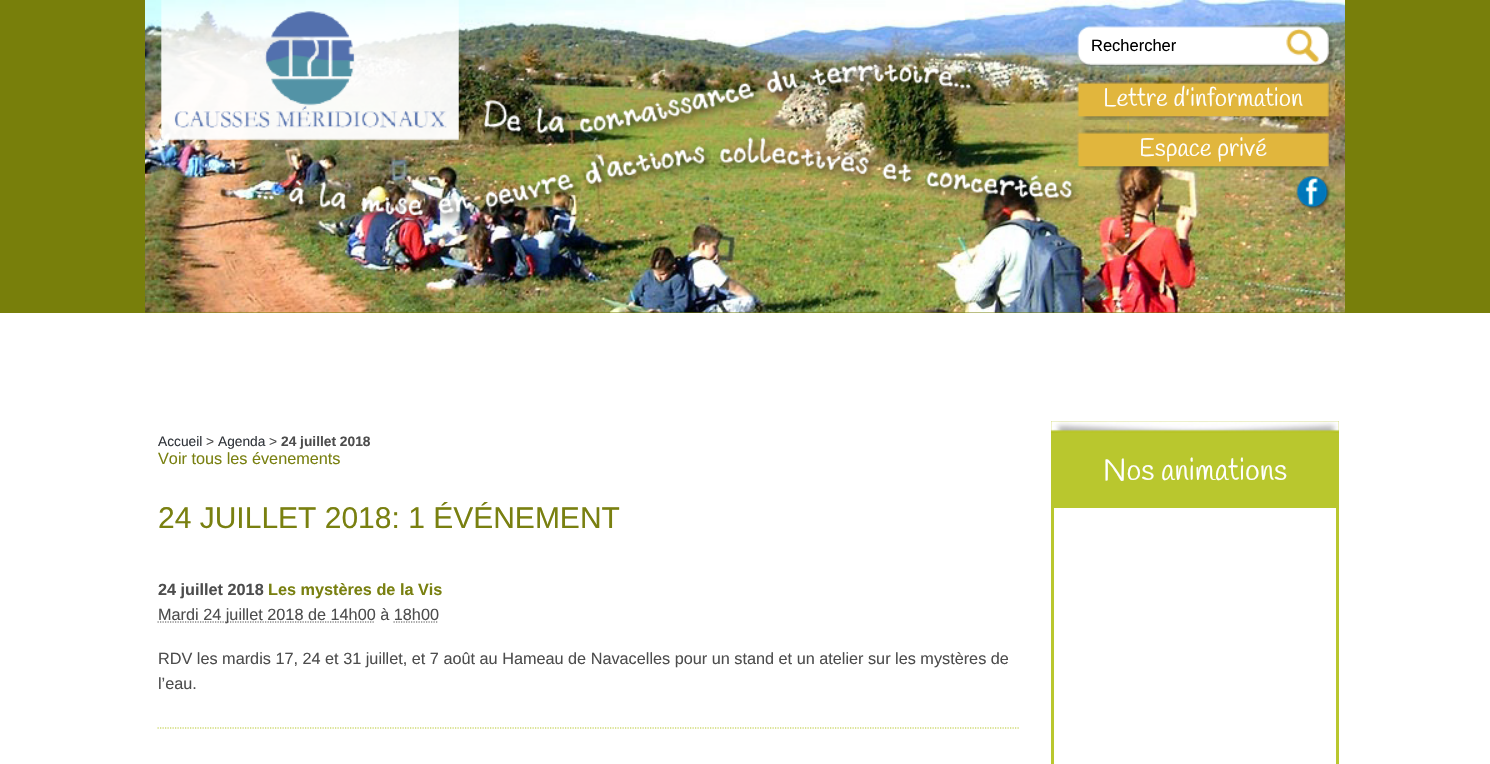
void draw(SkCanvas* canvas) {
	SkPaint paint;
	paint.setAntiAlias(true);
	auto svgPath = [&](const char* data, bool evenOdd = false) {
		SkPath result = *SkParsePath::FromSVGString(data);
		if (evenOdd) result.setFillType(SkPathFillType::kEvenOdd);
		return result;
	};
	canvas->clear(0xffffffff);
	paint.setColor(0xff787f0b);
	canvas->drawRect(SkRect::MakeXYWH(0, 0, 1490, 313), paint);
	canvas->drawImageRect(SkImages::DeferredFromEncodedData(SkData::MakeFromFileName("img1.png")), SkRect::MakeXYWH(145, 0, 1200, 313), SkSamplingOptions());
	canvas->drawImageRect(SkImages::DeferredFromEncodedData(SkData::MakeFromFileName("img2.png")), SkRect::MakeXYWH(161, 0, 968, 229), SkSamplingOptions());
	canvas->drawImageRect(SkImages::DeferredFromEncodedData(SkData::MakeFromFileName("img3.png")), SkRect::MakeXYWH(1077, 26, 256, 41), SkSamplingOptions());
	SkFont f1(fontMgr->matchFamilyStyle("Liberation Sans", SkFontStyle::Normal()), 16.5);
	f1.setSubpixel(true);
	paint.setColor(0xff000000);
	canvas->drawString("Rechercher", 1091, 51, f1, paint);
	canvas->drawImageRect(SkImages::DeferredFromEncodedData(SkData::MakeFromFileName("img4.png")), SkRect::MakeXYWH(1077, 78, 252, 42), SkSamplingOptions());
	SkFont f2(fontMgr->matchFamilyStyle("Handlee", SkFontStyle::Normal()), 25);
	f2.setSubpixel(true);
	paint.setColor(0xffffffff);
	canvas->drawString("Lettre d'information", 1103, 106, f2, paint);
	canvas->drawImageRect(SkImages::DeferredFromEncodedData(SkData::MakeFromFileName("img5.png")), SkRect::MakeXYWH(1077, 128, 252, 42), SkSamplingOptions());
	canvas->drawString("Espace privé", 1139, 156, f2, paint);
	canvas->drawImageRect(SkImages::DeferredFromEncodedData(SkData::MakeFromFileName("img6.png")), SkRect::MakeXYWH(1296, 176, 35, 34), SkSamplingOptions());
	SkFont f3(fontMgr->matchFamilyStyle("Liberation Sans", SkFontStyle::Normal()), 13.75);
	f3.setSubpixel(true);
	paint.setColor(0xff33373d);
	canvas->drawString("Accueil", 158, 446, f3, paint);
	paint.setColor(0xff4d4d4d);
	canvas->drawString(">", 206, 446, f3, paint);
	paint.setColor(0xff33373d);
	canvas->drawString("Agenda", 218, 446, f3, paint);
	paint.setColor(0xff4d4d4d);
	canvas->drawString(">", 269, 446, f3, paint);
	SkFont f4(fontMgr->matchFamilyStyle("Liberation Sans", SkFontStyle::Bold()), 13.75);
	f4.setSubpixel(true);
	canvas->drawString("24 juillet 2018", 281, 446, f4, paint);
	SkFont f5(fontMgr->matchFamilyStyle("Liberation Sans", SkFontStyle::Normal()), 16.25);
	f5.setSubpixel(true);
	paint.setColor(0xff798010);
	canvas->drawString("Voir tous les évenements", 158, 464, f5, paint);
	SkFont f6(fontMgr->matchFamilyStyle("Liberation Sans", SkFontStyle::Normal()), 30);
	f6.setSubpixel(true);
	canvas->drawString("24 JUILLET 2018: 1 ÉVÉNEMENT", 158, 528, f6, paint);
	paint.setStroke(true);
	paint.setStrokeWidth(1.2);
	paint.setColor(0xffb9c72e);
	paint.setPathEffect(SkDashPathEffect::Make({{1.25f, 1.25f}}, 0));
	canvas->drawPath(svgPath("M157.5 728H1020"), paint);
	paint.setPathEffect(nullptr);
	SkFont f7(fontMgr->matchFamilyStyle("Liberation Sans", SkFontStyle::Bold()), 16.25);
	f7.setSubpixel(true);
	paint.setStroke(false);
	paint.setColor(0xff4d4d4d);
	canvas->drawString("24 juillet 2018", 158, 595, f7, paint);
	paint.setColor(0xff798010);
	canvas->drawString("Les mystères de la Vis", 268, 595, f7, paint);
	paint.setStroke(true);
	paint.setColor(0xff4d4d4d);
	paint.setPathEffect(SkDashPathEffect::Make({{1.25f, 1.25f}}, 0));
	canvas->drawPath(svgPath("M157.5 622H375"), paint);
	paint.setPathEffect(nullptr);
	paint.setStroke(false);
	canvas->drawString("Mardi 24 juillet 2018 de 14h00 à 18h00", 158, 620, f5, paint);
	paint.setStroke(true);
	paint.setPathEffect(SkDashPathEffect::Make({{1.25f, 1.25f}}, 0));
	canvas->drawPath(svgPath("M393.5 622H438.5"), paint);
	paint.setPathEffect(nullptr);
	paint.setStroke(false);
	canvas->drawString("RDV les mardis 17, 24 et 31 juillet, et 7 août au Hameau de Navacelles pour un stand et un atelier sur les mystères de", 158, 664, f5, paint);
	canvas->drawString("l’eau.", 158, 689, f5, paint);
	paint.setColor(0xffb9c72e);
	canvas->drawRect(SkRect::MakeXYWH(1051, 421, 288, 84), paint);
	canvas->drawImageRect(SkImages::DeferredFromEncodedData(SkData::MakeFromFileName("img7.png")), SkRect::MakeXYWH(1051, 421, 288, 12), SkSamplingOptions());
	SkFont f8(fontMgr->matchFamilyStyle("Handlee", SkFontStyle::Normal()), 30);
	f8.setSubpixel(true);
	paint.setColor(0xffffffff);
	canvas->drawString("Nos animations", 1103, 480, f8, paint);
	paint.setStroke(true);
	paint.setStrokeWidth(3);
	paint.setColor(0xffb9c72e);
	canvas->drawRect(SkRect::MakeXYWH(1052.5, 506.5, 285, 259), paint);
}
